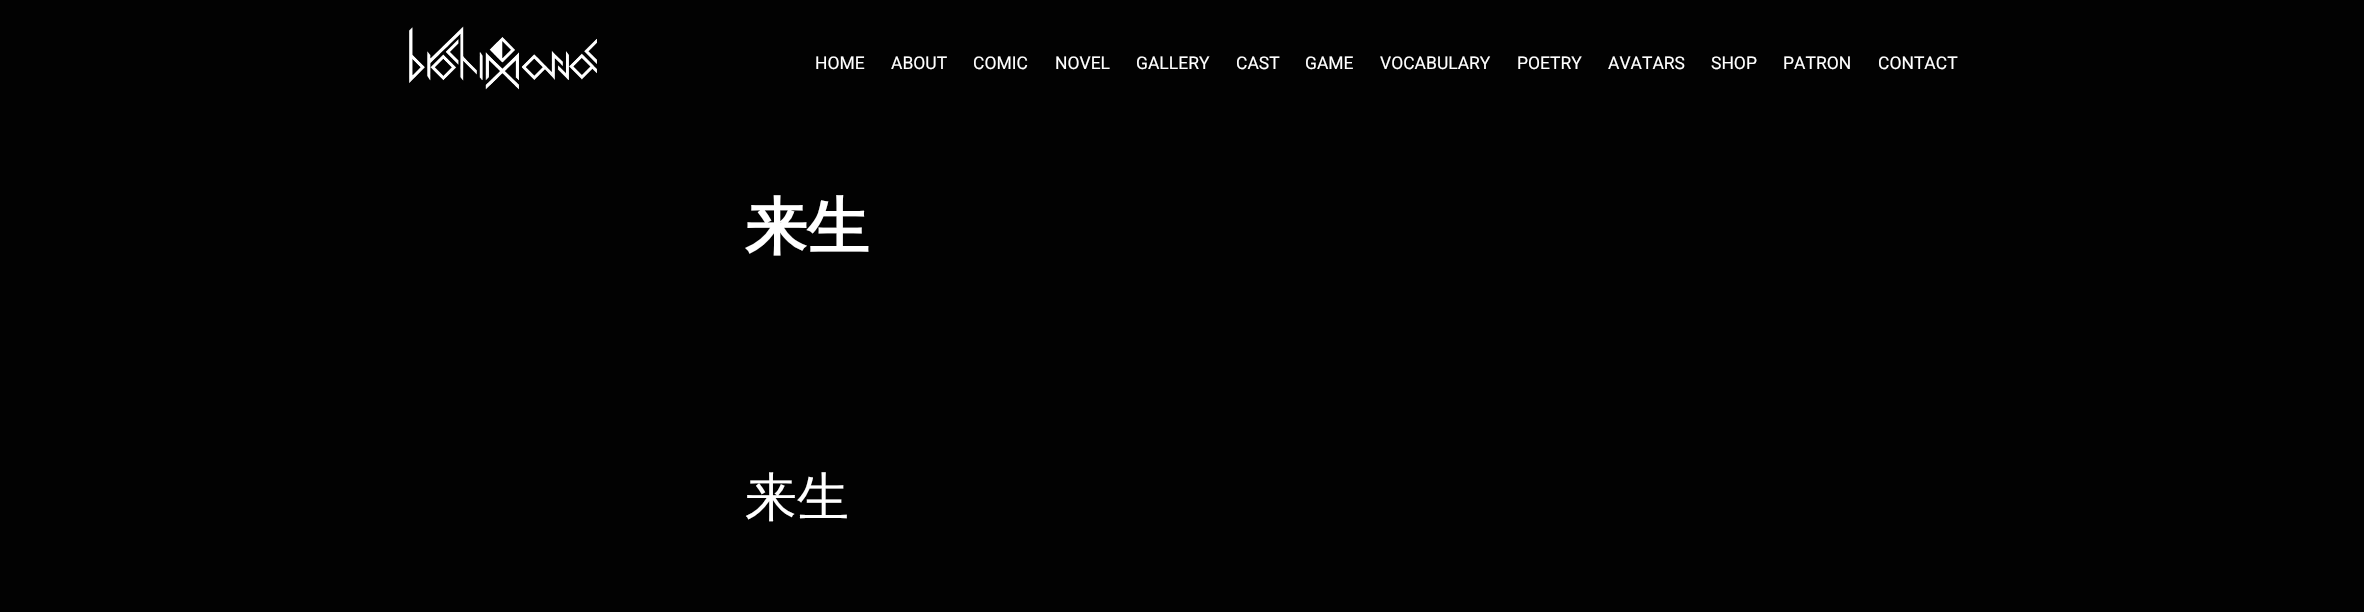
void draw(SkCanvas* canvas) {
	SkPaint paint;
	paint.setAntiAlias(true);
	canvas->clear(0xff020202);
	canvas->drawImageRect(SkImages::DeferredFromEncodedData(SkData::MakeFromFileName("img1.png")), SkRect::MakeXYWH(409, 26, 188, 64), SkSamplingOptions());
	SkFont f1(fontMgr->matchFamilyStyle("Roboto", SkFontStyle::Normal()), 17.5);
	f1.setSubpixel(true);
	paint.setColor(0xffffffff);
	canvas->drawString("HOME", 815, 69, f1, paint);
	canvas->drawString("ABOUT", 891, 69, f1, paint);
	canvas->drawString("COMIC", 973, 69, f1, paint);
	canvas->drawString("NOVEL", 1055, 69, f1, paint);
	canvas->drawString("GALLERY", 1136, 69, f1, paint);
	canvas->drawString("CAST", 1236, 69, f1, paint);
	canvas->drawString("GAME", 1305, 69, f1, paint);
	canvas->drawString("VOCABULARY", 1380, 69, f1, paint);
	canvas->drawString("POETRY", 1517, 69, f1, paint);
	canvas->drawString("AVATARS", 1608, 69, f1, paint);
	canvas->drawString("SHOP", 1711, 69, f1, paint);
	canvas->drawString("PATRON", 1783, 69, f1, paint);
	canvas->drawString("CONTACT", 1878, 69, f1, paint);
	SkFont f2(fontMgr->matchFamilyStyle("WenQuanYi Zen Hei", SkFontStyle::Bold()), 62);
	f2.setSubpixel(true);
	canvas->drawString("来生", 745, 248, f2, paint);
	SkFont f3(fontMgr->matchFamilyStyle("WenQuanYi Zen Hei", SkFontStyle(500, SkFontStyle::kNormal_Width, SkFontStyle::kUpright_Slant)), 52);
	f3.setSubpixel(true);
	canvas->drawString("来生", 745, 515, f3, paint);
}
